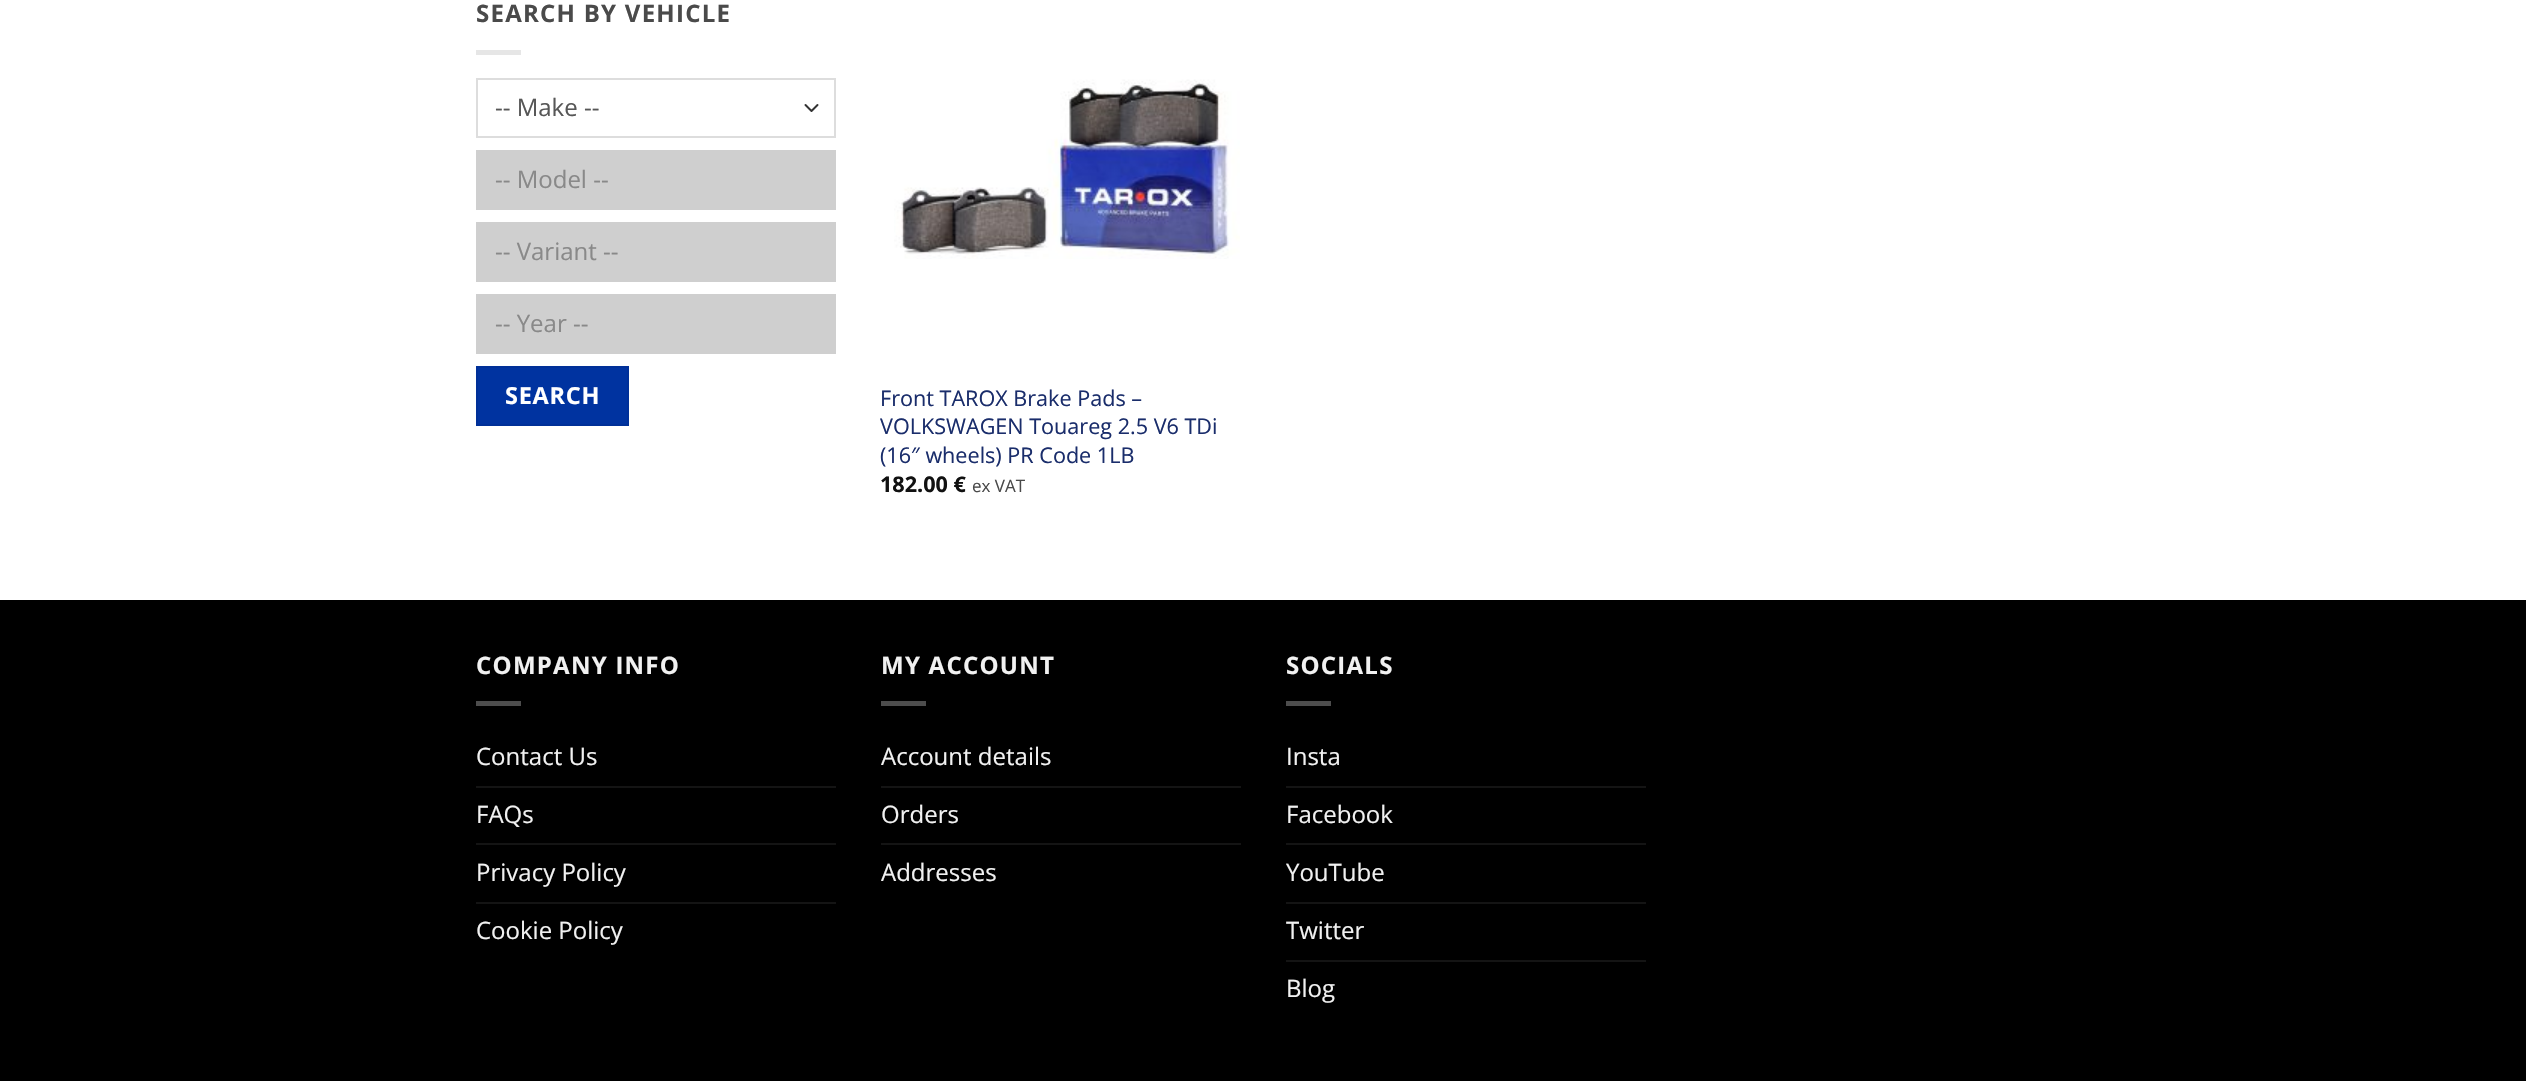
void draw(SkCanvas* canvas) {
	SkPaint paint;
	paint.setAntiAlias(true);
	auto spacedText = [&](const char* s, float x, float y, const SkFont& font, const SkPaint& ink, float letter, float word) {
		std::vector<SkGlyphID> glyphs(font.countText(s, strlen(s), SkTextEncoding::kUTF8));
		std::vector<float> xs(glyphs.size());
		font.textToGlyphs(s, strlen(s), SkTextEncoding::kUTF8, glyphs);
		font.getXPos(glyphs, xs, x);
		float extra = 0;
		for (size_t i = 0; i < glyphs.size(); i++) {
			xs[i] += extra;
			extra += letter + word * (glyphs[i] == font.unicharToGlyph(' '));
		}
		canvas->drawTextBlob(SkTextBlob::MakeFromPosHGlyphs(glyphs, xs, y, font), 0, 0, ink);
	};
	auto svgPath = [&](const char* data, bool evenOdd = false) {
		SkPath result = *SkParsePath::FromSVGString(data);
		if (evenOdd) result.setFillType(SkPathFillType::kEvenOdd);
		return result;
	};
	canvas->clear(0xffffffff);
	SkFont f1(fontMgr->matchFamilyStyle("Open Sans", SkFontStyle::Bold()), 24);
	f1.setSubpixel(true);
	paint.setColor(0xff4a4a4a);
	spacedText("SEARCH BY VEHICLE", 476, 22, f1, paint, 1.25, 0);
	paint.setColor(0xffe6e6e6);
	canvas->drawRect(SkRect::MakeXYWH(476, 50, 45, 5), paint);
	paint.setStroke(true);
	paint.setStrokeWidth(2);
	paint.setStrokeCap(SkPaint::kRound_Cap);
	paint.setStrokeJoin(SkPaint::kRound_Join);
	paint.setColor(0xff333333);
	canvas->drawPath(svgPath("M805.5 105L811.5 111L817.5 105"), paint);
	paint.setStrokeCap(SkPaint::kButt_Cap);
	paint.setStrokeJoin(SkPaint::kMiter_Join);
	paint.setColor(0xffdddddd);
	canvas->drawRect(SkRect::MakeXYWH(477, 79, 358, 58), paint);
	SkFont f2(fontMgr->matchFamilyStyle("Open Sans", SkFontStyle::Normal()), 24);
	f2.setSubpixel(true);
	paint.setStroke(false);
	paint.setColor(0xff575757);
	canvas->drawString("-- Make --", 495, 116, f2, paint);
	paint.setColor(0xffcfcfcf);
	canvas->drawRect(SkRect::MakeXYWH(476, 150, 360, 60), paint);
	paint.setColor(0xff898989);
	canvas->drawString("-- Model --", 495, 188, f2, paint);
	paint.setColor(0xffcfcfcf);
	canvas->drawRect(SkRect::MakeXYWH(476, 222, 360, 60), paint);
	paint.setColor(0xff898989);
	canvas->drawString("-- Variant --", 495, 260, f2, paint);
	paint.setColor(0xffcfcfcf);
	canvas->drawRect(SkRect::MakeXYWH(476, 294, 360, 60), paint);
	paint.setColor(0xff898989);
	canvas->drawString("-- Year --", 495, 332, f2, paint);
	paint.setColor(0xff0033a0);
	canvas->drawRect(SkRect::MakeXYWH(477, 367, 151, 58), paint);
	paint.setStroke(true);
	paint.setColor(0xff003098);
	canvas->drawRect(SkRect::MakeXYWH(477, 367, 151, 58), paint);
	SkFont f3(fontMgr->matchFamilyStyle("Open Sans", SkFontStyle::Bold()), 23.5);
	f3.setSubpixel(true);
	paint.setStroke(false);
	paint.setColor(0xffffffff);
	spacedText("SEARCH", 505, 404, f3, paint, 0.75, 0);
	canvas->drawImageRect(SkImages::DeferredFromEncodedData(SkData::MakeFromFileName("img1.png")), SkRect::MakeXYWH(894, 79, 346, 180), SkSamplingOptions());
	SkFont f4(fontMgr->matchFamilyStyle("Open Sans", SkFontStyle::Normal()), 21.6);
	f4.setSubpixel(true);
	paint.setColor(0xff1a2d6b);
	canvas->drawString("Front TAROX Brake Pads –", 880, 406, f4, paint);
	canvas->drawString("VOLKSWAGEN Touareg 2.5 V6 TDi", 880, 434, f4, paint);
	canvas->drawString("(16″ wheels) PR Code 1LB", 880, 463, f4, paint);
	SkFont f5(fontMgr->matchFamilyStyle("Open Sans", SkFontStyle::Bold()), 21.6);
	f5.setSubpixel(true);
	paint.setColor(0xff111111);
	canvas->drawString("182.00 €", 880, 492, f5, paint);
	SkFont f6(fontMgr->matchFamilyStyle("Open Sans", SkFontStyle::Normal()), 17);
	f6.setSubpixel(true);
	paint.setColor(0xff4a4a4a);
	canvas->drawString("ex VAT", 972, 492, f6, paint);
	paint.setColor(0xff000000);
	canvas->drawRect(SkRect::MakeXYWH(0, 600, 2526, 481), paint);
	paint.setColor(0xfff1f1f1);
	spacedText("COMPANY INFO", 476, 674, f1, paint, 1.25, 0);
	paint.setColor(0xff4d4d4d);
	canvas->drawRect(SkRect::MakeXYWH(476, 701, 45, 5), paint);
	paint.setColor(0xfff1f1f1);
	canvas->drawString("Contact Us", 476, 765, f2, paint);
	paint.setColor(0xff141414);
	canvas->drawRect(SkRect::MakeXYWH(476, 786, 360, 2), paint);
	paint.setColor(0xfff1f1f1);
	canvas->drawString("FAQs", 476, 823, f2, paint);
	paint.setColor(0xff141414);
	canvas->drawRect(SkRect::MakeXYWH(476, 843, 360, 2), paint);
	paint.setColor(0xfff1f1f1);
	canvas->drawString("Privacy Policy", 476, 881, f2, paint);
	paint.setColor(0xff141414);
	canvas->drawRect(SkRect::MakeXYWH(476, 902, 360, 2), paint);
	paint.setColor(0xfff1f1f1);
	canvas->drawString("Cookie Policy", 476, 939, f2, paint);
	spacedText("MY ACCOUNT", 881, 674, f1, paint, 1.25, 0);
	paint.setColor(0xff4d4d4d);
	canvas->drawRect(SkRect::MakeXYWH(881, 701, 45, 5), paint);
	paint.setColor(0xfff1f1f1);
	canvas->drawString("Account details", 881, 765, f2, paint);
	paint.setColor(0xff141414);
	canvas->drawRect(SkRect::MakeXYWH(881, 786, 360, 2), paint);
	paint.setColor(0xfff1f1f1);
	canvas->drawString("Orders", 881, 823, f2, paint);
	paint.setColor(0xff141414);
	canvas->drawRect(SkRect::MakeXYWH(881, 843, 360, 2), paint);
	paint.setColor(0xfff1f1f1);
	canvas->drawString("Addresses", 881, 881, f2, paint);
	spacedText("SOCIALS", 1286, 674, f1, paint, 1.25, 0);
	paint.setColor(0xff4d4d4d);
	canvas->drawRect(SkRect::MakeXYWH(1286, 701, 45, 5), paint);
	paint.setColor(0xfff1f1f1);
	canvas->drawString("Insta", 1286, 765, f2, paint);
	paint.setColor(0xff141414);
	canvas->drawRect(SkRect::MakeXYWH(1286, 786, 360, 2), paint);
	paint.setColor(0xfff1f1f1);
	canvas->drawString("Facebook", 1286, 823, f2, paint);
	paint.setColor(0xff141414);
	canvas->drawRect(SkRect::MakeXYWH(1286, 843, 360, 2), paint);
	paint.setColor(0xfff1f1f1);
	canvas->drawString("YouTube", 1286, 881, f2, paint);
	paint.setColor(0xff141414);
	canvas->drawRect(SkRect::MakeXYWH(1286, 902, 360, 2), paint);
	paint.setColor(0xfff1f1f1);
	canvas->drawString("Twitter", 1286, 939, f2, paint);
	paint.setColor(0xff141414);
	canvas->drawRect(SkRect::MakeXYWH(1286, 960, 360, 2), paint);
	paint.setColor(0xfff1f1f1);
	canvas->drawString("Blog", 1286, 997, f2, paint);
}
